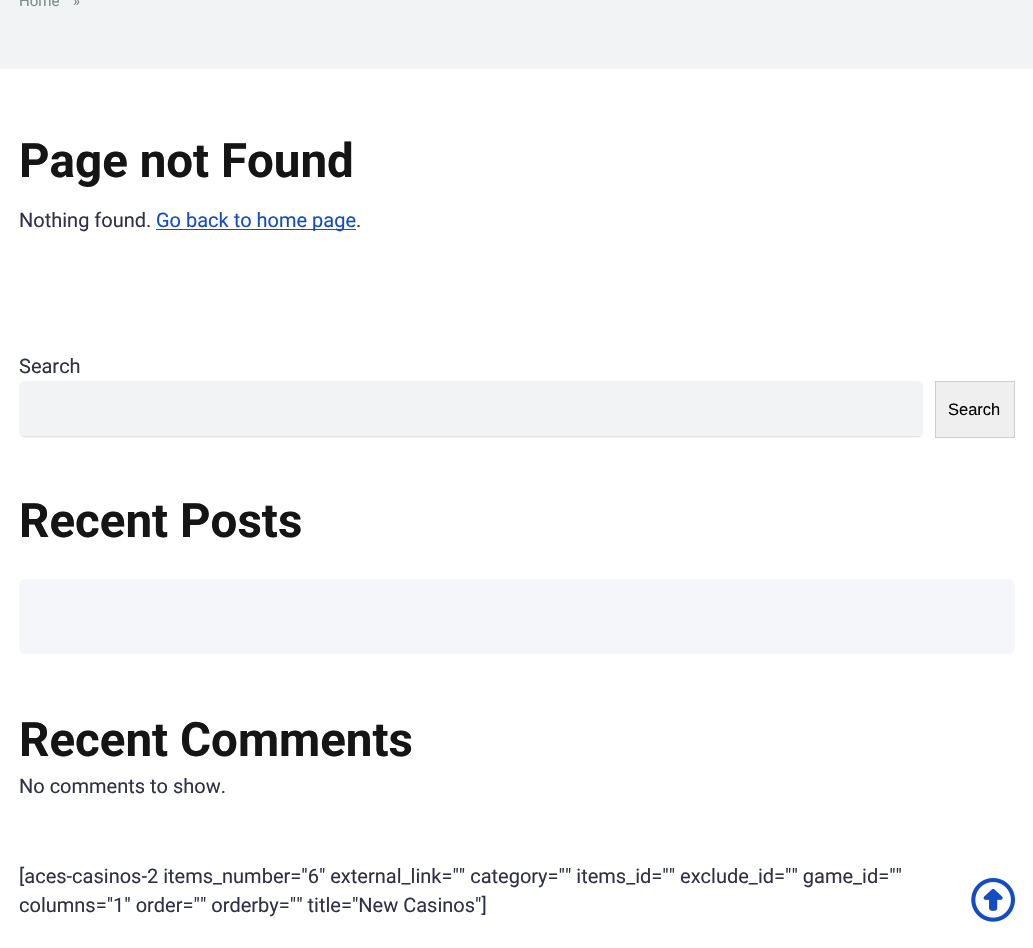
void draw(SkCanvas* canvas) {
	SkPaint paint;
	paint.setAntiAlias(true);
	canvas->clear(0xffffffff);
	paint.setColor(0xfff1f3f4);
	canvas->drawRect(SkRect::MakeXYWH(0, 0, 1033, 69), paint);
	SkFont f1(fontMgr->matchFamilyStyle("Roboto", SkFontStyle::Normal()), 15);
	f1.setSubpixel(true);
	paint.setColor(0xff7f8c8d);
	canvas->drawString("Home", 19, 6, f1, paint);
	canvas->drawString("»", 73, 6, f1, paint);
	SkFont f2(fontMgr->matchFamilyStyle("Roboto", SkFontStyle::Bold()), 47.5);
	f2.setSubpixel(true);
	paint.setColor(0xff151515);
	canvas->drawString("Page not Found", 19, 177, f2, paint);
	SkFont f3(fontMgr->matchFamilyStyle("Roboto", SkFontStyle::Normal()), 20);
	f3.setSubpixel(true);
	paint.setColor(0xff2e3246);
	canvas->drawString("Nothing found.", 19, 227, f3, paint);
	paint.setColor(0xff134dc1);
	canvas->drawRect(SkRect::MakeXYWH(156, 229, 200, 1), paint);
	canvas->drawString("Go back to home page", 156, 227, f3, paint);
	paint.setColor(0xff2e3246);
	canvas->drawString(".", 356, 227, f3, paint);
	canvas->drawString("Search", 19, 373, f3, paint);
	paint.setColor(0xfff1f3f4);
	canvas->drawRoundRect(SkRect::MakeXYWH(19, 381, 904, 57), 6, 6, paint);
	paint.setColor(0xffe4e4e4);
	canvas->drawRect(SkRect::MakeXYWH(23, 436, 897, 1), paint);
	paint.setColor(0xffefefef);
	canvas->drawRect(SkRect::MakeXYWH(935.5, 381.5, 79, 56), paint);
	paint.setStroke(true);
	paint.setStrokeWidth(1);
	paint.setColor(0xffcccccc);
	canvas->drawRect(SkRect::MakeXYWH(935.5, 381.5, 79, 56), paint);
	SkFont f4(fontMgr->matchFamilyStyle("Liberation Sans", SkFontStyle::Normal()), 16.5);
	f4.setSubpixel(true);
	paint.setStroke(false);
	paint.setColor(0xff000000);
	canvas->drawString("Search", 948, 415, f4, paint);
	paint.setColor(0xff151515);
	canvas->drawString("Recent Posts", 19, 537, f2, paint);
	paint.setColor(0xfff5f6fa);
	canvas->drawRoundRect(SkRect::MakeXYWH(19, 579, 996, 75), 6, 6, paint);
	paint.setColor(0xff151515);
	canvas->drawString("Recent Comments", 19, 756, f2, paint);
	paint.setColor(0xff2e3246);
	canvas->drawString("No comments to show.", 19, 793, f3, paint);
	canvas->drawString("[aces-casinos-2 items_number=\"6\" external_link=\"\" category=\"\" items_id=\"\" exclude_id=\"\" game_id=\"\"", 19, 883, f3, paint);
	canvas->drawString("columns=\"1\" order=\"\" orderby=\"\" title=\"New Casinos\"]", 19, 912, f3, paint);
	canvas->drawImageRect(SkImages::DeferredFromEncodedData(SkData::MakeFromFileName("img1.png")), SkRect::MakeXYWH(971, 878, 44, 44), SkSamplingOptions());
}
